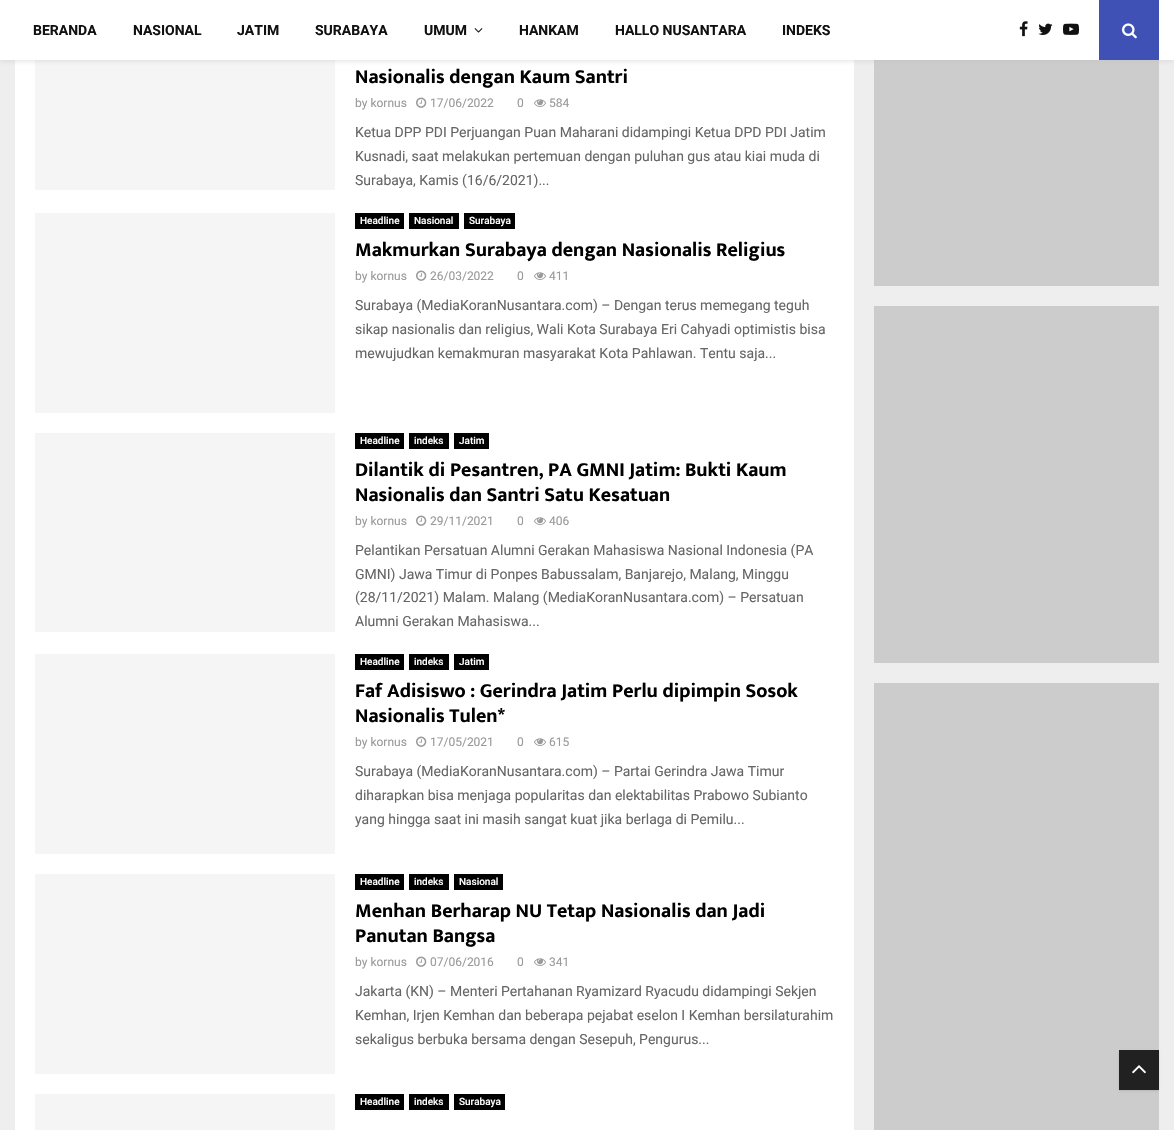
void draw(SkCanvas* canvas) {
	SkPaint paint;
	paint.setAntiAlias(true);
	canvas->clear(0xffeeeeee);
	paint.setColor(0xffffffff);
	canvas->drawRect(SkRect::MakeXYWH(15, 60, 839, 1070), paint);
	paint.setColor(0xfff5f5f5);
	canvas->drawRect(SkRect::MakeXYWH(35, 60, 300, 130), paint);
	paint.setColor(0xffcccccc);
	canvas->drawRect(SkRect::MakeXYWH(874, 60, 285, 226), paint);
	paint.setColor(0x75bebebe);
	paint.setMaskFilter(SkMaskFilter::MakeBlur(kNormal_SkBlurStyle, 2.5));
	canvas->drawRect(SkRect::MakeXYWH(0, 1, 1174, 60), paint);
	paint.setMaskFilter(nullptr);
	paint.setColor(0xffffffff);
	canvas->drawRect(SkRect::MakeXYWH(0, 0, 1174, 60), paint);
	SkFont f1(fontMgr->matchFamilyStyle("Roboto", SkFontStyle::Bold()), 14);
	f1.setSubpixel(true);
	paint.setColor(0xff111111);
	canvas->drawString("BERANDA", 33, 35, f1, paint);
	canvas->drawString("NASIONAL", 133, 35, f1, paint);
	canvas->drawString("JATIM", 237, 35, f1, paint);
	canvas->drawString("SURABAYA", 315, 35, f1, paint);
	canvas->drawString("UMUM", 424, 35, f1, paint);
	canvas->drawImageRect(SkImages::DeferredFromEncodedData(SkData::MakeFromFileName("img1.png")), SkRect::MakeXYWH(474, 28, 9, 5), SkSamplingOptions());
	canvas->drawString("HANKAM", 519, 35, f1, paint);
	canvas->drawString("HALLO NUSANTARA", 615, 35, f1, paint);
	canvas->drawString("INDEKS", 782, 35, f1, paint);
	canvas->drawImageRect(SkImages::DeferredFromEncodedData(SkData::MakeFromFileName("img2.png")), SkRect::MakeXYWH(1019, 21, 9, 16), SkSamplingOptions());
	canvas->drawImageRect(SkImages::DeferredFromEncodedData(SkData::MakeFromFileName("img3.png")), SkRect::MakeXYWH(1038, 23, 15, 12), SkSamplingOptions());
	canvas->drawImageRect(SkImages::DeferredFromEncodedData(SkData::MakeFromFileName("img4.png")), SkRect::MakeXYWH(1063, 23, 16, 12), SkSamplingOptions());
	paint.setColor(0xff3f51b5);
	canvas->drawRect(SkRect::MakeXYWH(1099, 0, 60, 60), paint);
	canvas->drawImageRect(SkImages::DeferredFromEncodedData(SkData::MakeFromFileName("img5.png")), SkRect::MakeXYWH(1122, 23, 15, 16), SkSamplingOptions());
	SkFont f2(fontMgr->matchFamilyStyle("Mukta Vaani", SkFontStyle::Bold()), 20);
	f2.setSubpixel(true);
	paint.setColor(0xff000000);
	canvas->drawString("Nasionalis dengan Kaum Santri", 355, 83, f2, paint);
	SkFont f3(fontMgr->matchFamilyStyle("Roboto", SkFontStyle::Normal()), 12);
	f3.setSubpixel(true);
	paint.setColor(0xff999999);
	canvas->drawString("by kornus", 355, 107, f3, paint);
	canvas->drawImageRect(SkImages::DeferredFromEncodedData(SkData::MakeFromFileName("img6.png")), SkRect::MakeXYWH(416, 97, 11, 11), SkSamplingOptions());
	canvas->drawString("17/06/2022", 430, 107, f3, paint);
	canvas->drawString("0", 517, 107, f3, paint);
	canvas->drawImageRect(SkImages::DeferredFromEncodedData(SkData::MakeFromFileName("img7.png")), SkRect::MakeXYWH(534, 99, 12, 8), SkSamplingOptions());
	canvas->drawString("584", 549, 107, f3, paint);
	SkFont f4(fontMgr->matchFamilyStyle("Roboto", SkFontStyle::Normal()), 14);
	f4.setSubpixel(true);
	paint.setColor(0xff666666);
	canvas->drawString("Ketua DPP PDI Perjuangan Puan Maharani didampingi Ketua DPD PDI Jatim", 355, 137, f4, paint);
	canvas->drawString("Kusnadi, saat melakukan pertemuan dengan puluhan gus atau kiai muda di", 355, 161, f4, paint);
	canvas->drawString("Surabaya, Kamis (16/6/2021)...", 355, 185, f4, paint);
	paint.setColor(0xfff5f5f5);
	canvas->drawRect(SkRect::MakeXYWH(35, 213, 300, 200), paint);
	paint.setColor(0xff000000);
	canvas->drawRect(SkRect::MakeXYWH(355, 213, 49, 16), paint);
	SkFont f5(fontMgr->matchFamilyStyle("Roboto", SkFontStyle(500, SkFontStyle::kNormal_Width, SkFontStyle::kUpright_Slant)), 10);
	f5.setSubpixel(true);
	paint.setColor(0xffffffff);
	canvas->drawString("Headline", 360, 224, f5, paint);
	paint.setColor(0xff000000);
	canvas->drawRect(SkRect::MakeXYWH(409, 213, 50, 16), paint);
	paint.setColor(0xffffffff);
	canvas->drawString("Nasional", 414, 224, f5, paint);
	paint.setColor(0xff000000);
	canvas->drawRect(SkRect::MakeXYWH(464, 213, 51, 16), paint);
	paint.setColor(0xffffffff);
	canvas->drawString("Surabaya", 469, 224, f5, paint);
	paint.setColor(0xff000000);
	canvas->drawString("Makmurkan Surabaya dengan Nasionalis Religius", 355, 256, f2, paint);
	paint.setColor(0xff999999);
	canvas->drawString("by kornus", 355, 280, f3, paint);
	canvas->drawImageRect(SkImages::DeferredFromEncodedData(SkData::MakeFromFileName("img6.png")), SkRect::MakeXYWH(416, 270, 11, 11), SkSamplingOptions());
	canvas->drawString("26/03/2022", 430, 280, f3, paint);
	canvas->drawString("0", 517, 280, f3, paint);
	canvas->drawImageRect(SkImages::DeferredFromEncodedData(SkData::MakeFromFileName("img7.png")), SkRect::MakeXYWH(534, 272, 12, 8), SkSamplingOptions());
	canvas->drawString("411", 549, 280, f3, paint);
	paint.setColor(0xff666666);
	canvas->drawString("Surabaya (MediaKoranNusantara.com) – Dengan terus memegang teguh", 355, 310, f4, paint);
	canvas->drawString("sikap nasionalis dan religius, Wali Kota Surabaya Eri Cahyadi optimistis bisa", 355, 334, f4, paint);
	canvas->drawString("mewujudkan kemakmuran masyarakat Kota Pahlawan. Tentu saja...", 355, 358, f4, paint);
	paint.setColor(0xfff5f5f5);
	canvas->drawRect(SkRect::MakeXYWH(35, 433, 300, 199), paint);
	paint.setColor(0xff000000);
	canvas->drawRect(SkRect::MakeXYWH(355, 433, 49, 16), paint);
	paint.setColor(0xffffffff);
	canvas->drawString("Headline", 360, 444, f5, paint);
	paint.setColor(0xff000000);
	canvas->drawRect(SkRect::MakeXYWH(409, 433, 40, 16), paint);
	paint.setColor(0xffffffff);
	canvas->drawString("indeks", 414, 444, f5, paint);
	paint.setColor(0xff000000);
	canvas->drawRect(SkRect::MakeXYWH(454, 433, 35, 16), paint);
	paint.setColor(0xffffffff);
	canvas->drawString("Jatim", 459, 444, f5, paint);
	paint.setColor(0xff000000);
	canvas->drawString("Dilantik di Pesantren, PA GMNI Jatim: Bukti Kaum", 355, 476, f2, paint);
	canvas->drawString("Nasionalis dan Santri Satu Kesatuan", 355, 501, f2, paint);
	paint.setColor(0xff999999);
	canvas->drawString("by kornus", 355, 525, f3, paint);
	canvas->drawImageRect(SkImages::DeferredFromEncodedData(SkData::MakeFromFileName("img6.png")), SkRect::MakeXYWH(416, 515, 11, 11), SkSamplingOptions());
	canvas->drawString("29/11/2021", 430, 525, f3, paint);
	canvas->drawString("0", 517, 525, f3, paint);
	canvas->drawImageRect(SkImages::DeferredFromEncodedData(SkData::MakeFromFileName("img7.png")), SkRect::MakeXYWH(534, 517, 12, 8), SkSamplingOptions());
	canvas->drawString("406", 549, 525, f3, paint);
	paint.setColor(0xff666666);
	canvas->drawString("Pelantikan Persatuan Alumni Gerakan Mahasiswa Nasional Indonesia (PA", 355, 555, f4, paint);
	canvas->drawString("GMNI) Jawa Timur di Ponpes Babussalam, Banjarejo, Malang, Minggu", 355, 579, f4, paint);
	canvas->drawString("(28/11/2021) Malam. Malang (MediaKoranNusantara.com) – Persatuan", 355, 602, f4, paint);
	canvas->drawString("Alumni Gerakan Mahasiswa...", 355, 626, f4, paint);
	paint.setColor(0xfff5f5f5);
	canvas->drawRect(SkRect::MakeXYWH(35, 654, 300, 200), paint);
	paint.setColor(0xff000000);
	canvas->drawRect(SkRect::MakeXYWH(355, 654, 49, 16), paint);
	paint.setColor(0xffffffff);
	canvas->drawString("Headline", 360, 665, f5, paint);
	paint.setColor(0xff000000);
	canvas->drawRect(SkRect::MakeXYWH(409, 654, 40, 16), paint);
	paint.setColor(0xffffffff);
	canvas->drawString("indeks", 414, 665, f5, paint);
	paint.setColor(0xff000000);
	canvas->drawRect(SkRect::MakeXYWH(454, 654, 35, 16), paint);
	paint.setColor(0xffffffff);
	canvas->drawString("Jatim", 459, 665, f5, paint);
	paint.setColor(0xff000000);
	canvas->drawString("Faf Adisiswo : Gerindra Jatim Perlu dipimpin Sosok", 355, 697, f2, paint);
	canvas->drawString("Nasionalis Tulen*", 355, 722, f2, paint);
	paint.setColor(0xff999999);
	canvas->drawString("by kornus", 355, 746, f3, paint);
	canvas->drawImageRect(SkImages::DeferredFromEncodedData(SkData::MakeFromFileName("img6.png")), SkRect::MakeXYWH(416, 736, 11, 11), SkSamplingOptions());
	canvas->drawString("17/05/2021", 430, 746, f3, paint);
	canvas->drawString("0", 517, 746, f3, paint);
	canvas->drawImageRect(SkImages::DeferredFromEncodedData(SkData::MakeFromFileName("img7.png")), SkRect::MakeXYWH(534, 738, 12, 8), SkSamplingOptions());
	canvas->drawString("615", 549, 746, f3, paint);
	paint.setColor(0xff666666);
	canvas->drawString("Surabaya (MediaKoranNusantara.com) – Partai Gerindra Jawa Timur", 355, 776, f4, paint);
	canvas->drawString("diharapkan bisa menjaga popularitas dan elektabilitas Prabowo Subianto", 355, 800, f4, paint);
	canvas->drawString("yang hingga saat ini masih sangat kuat jika berlaga di Pemilu...", 355, 824, f4, paint);
	paint.setColor(0xfff5f5f5);
	canvas->drawRect(SkRect::MakeXYWH(35, 874, 300, 200), paint);
	paint.setColor(0xff000000);
	canvas->drawRect(SkRect::MakeXYWH(355, 874, 49, 16), paint);
	paint.setColor(0xffffffff);
	canvas->drawString("Headline", 360, 885, f5, paint);
	paint.setColor(0xff000000);
	canvas->drawRect(SkRect::MakeXYWH(409, 874, 40, 16), paint);
	paint.setColor(0xffffffff);
	canvas->drawString("indeks", 414, 885, f5, paint);
	paint.setColor(0xff000000);
	canvas->drawRect(SkRect::MakeXYWH(454, 874, 49, 16), paint);
	paint.setColor(0xffffffff);
	canvas->drawString("Nasional", 459, 885, f5, paint);
	paint.setColor(0xff000000);
	canvas->drawString("Menhan Berharap NU Tetap Nasionalis dan Jadi", 355, 917, f2, paint);
	canvas->drawString("Panutan Bangsa", 355, 942, f2, paint);
	paint.setColor(0xff999999);
	canvas->drawString("by kornus", 355, 966, f3, paint);
	canvas->drawImageRect(SkImages::DeferredFromEncodedData(SkData::MakeFromFileName("img6.png")), SkRect::MakeXYWH(416, 956, 11, 11), SkSamplingOptions());
	canvas->drawString("07/06/2016", 430, 966, f3, paint);
	canvas->drawString("0", 517, 966, f3, paint);
	canvas->drawImageRect(SkImages::DeferredFromEncodedData(SkData::MakeFromFileName("img7.png")), SkRect::MakeXYWH(534, 958, 12, 8), SkSamplingOptions());
	canvas->drawString("341", 549, 966, f3, paint);
	paint.setColor(0xff666666);
	canvas->drawString("Jakarta (KN) – Menteri Pertahanan Ryamizard Ryacudu didampingi Sekjen", 355, 996, f4, paint);
	canvas->drawString("Kemhan, Irjen Kemhan dan beberapa pejabat eselon I Kemhan bersilaturahim", 355, 1020, f4, paint);
	canvas->drawString("sekaligus berbuka bersama dengan Sesepuh, Pengurus...", 355, 1044, f4, paint);
	paint.setColor(0xfff5f5f5);
	canvas->drawRect(SkRect::MakeXYWH(35, 1094, 300, 36), paint);
	paint.setColor(0xff000000);
	canvas->drawRect(SkRect::MakeXYWH(355, 1094, 49, 16), paint);
	paint.setColor(0xffffffff);
	canvas->drawString("Headline", 360, 1105, f5, paint);
	paint.setColor(0xff000000);
	canvas->drawRect(SkRect::MakeXYWH(409, 1094, 40, 16), paint);
	paint.setColor(0xffffffff);
	canvas->drawString("indeks", 414, 1105, f5, paint);
	paint.setColor(0xff000000);
	canvas->drawRect(SkRect::MakeXYWH(454, 1094, 51, 16), paint);
	paint.setColor(0xffffffff);
	canvas->drawString("Surabaya", 459, 1105, f5, paint);
	paint.setColor(0xffcccccc);
	canvas->drawRect(SkRect::MakeXYWH(874, 306, 285, 357), paint);
	canvas->drawRect(SkRect::MakeXYWH(874, 683, 285, 447), paint);
	paint.setColor(0x1a000000);
	paint.setMaskFilter(SkMaskFilter::MakeBlur(kNormal_SkBlurStyle, 1));
	canvas->drawRect(SkRect::MakeXYWH(1119, 1051, 40, 40), paint);
	paint.setMaskFilter(nullptr);
	paint.setColor(0xff212121);
	canvas->drawRect(SkRect::MakeXYWH(1119, 1050, 40, 40), paint);
	canvas->drawImageRect(SkImages::DeferredFromEncodedData(SkData::MakeFromFileName("img8.png")), SkRect::MakeXYWH(1132, 1065, 14, 9), SkSamplingOptions());
}
